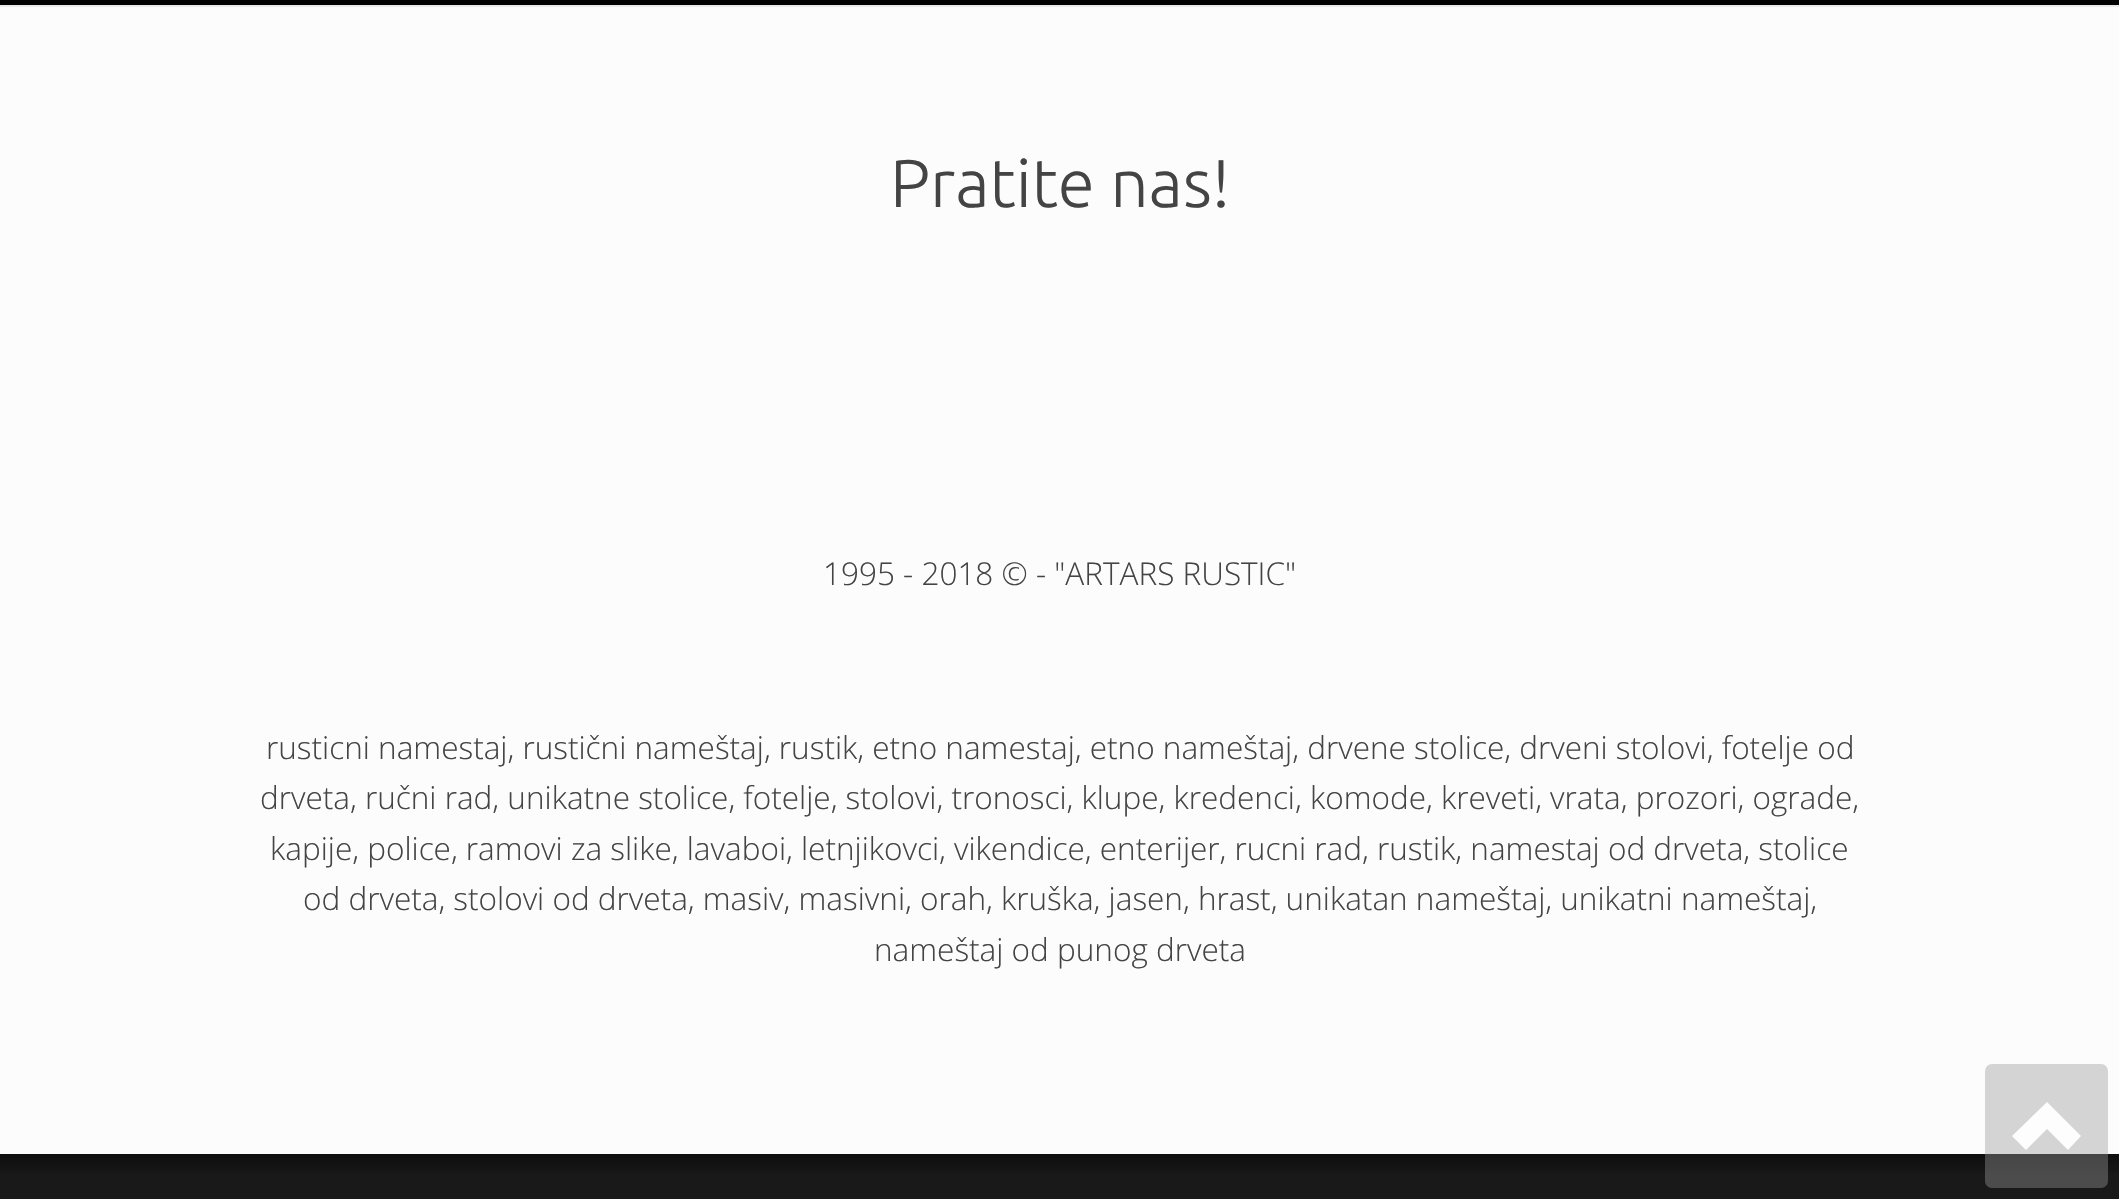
void draw(SkCanvas* canvas) {
	SkPaint paint;
	paint.setAntiAlias(true);
	auto svgPath = [&](const char* data, bool evenOdd = false) {
		SkPath result = *SkParsePath::FromSVGString(data);
		if (evenOdd) result.setFillType(SkPathFillType::kEvenOdd);
		return result;
	};
	canvas->clear(0xffffffff);
	canvas->drawImageRect(SkImages::DeferredFromEncodedData(SkData::MakeFromFileName("img1.png")), SkRect::MakeXYWH(0, 0, 2119, 1199), SkSamplingOptions());
	paint.setColor(0xfffcfcfc);
	canvas->drawRect(SkRect::MakeXYWH(0, 7, 2119, 1147), paint);
	paint.setColor(0xffeaeaea);
	canvas->drawRect(SkRect::MakeXYWH(0, 5, 2119, 2), paint);
	SkFont f1(fontMgr->matchFamilyStyle("Ubuntu", SkFontStyle(300, SkFontStyle::kNormal_Width, SkFontStyle::kUpright_Slant)), 67.5);
	f1.setSubpixel(true);
	paint.setColor(0xff444444);
	canvas->drawString("Pratite nas!", 890, 207, f1, paint);
	SkFont f2(fontMgr->matchFamilyStyle("Open Sans", SkFontStyle(300, SkFontStyle::kNormal_Width, SkFontStyle::kUpright_Slant)), 31.5);
	f2.setSubpixel(true);
	canvas->drawString("1995 - 2018 © - \"ARTARS RUSTIC\"", 823, 585, f2, paint);
	canvas->drawString("rusticni namestaj, rustični nameštaj, rustik, etno namestaj, etno nameštaj, drvene stolice, drveni stolovi, fotelje od", 266, 759, f2, paint);
	canvas->drawString("drveta, ručni rad, unikatne stolice, fotelje, stolovi, tronosci, klupe, kredenci, komode, kreveti, vrata, prozori, ograde,", 260, 809, f2, paint);
	canvas->drawString("kapije, police, ramovi za slike, lavaboi, letnjikovci, vikendice, enterijer, rucni rad, rustik, namestaj od drveta, stolice", 270, 860, f2, paint);
	canvas->drawString("od drveta, stolovi od drveta, masiv, masivni, orah, kruška, jasen, hrast, unikatan nameštaj, unikatni nameštaj,", 303, 910, f2, paint);
	canvas->drawString("nameštaj od punog drveta", 874, 961, f2, paint);
	paint.setColor(0x66999999);
	canvas->drawRoundRect(SkRect::MakeXYWH(1985, 1064, 123, 124), 7, 7, paint);
	paint.setColor(0xfffdfdfd);
	canvas->drawPath(svgPath("M2012 1136L2026 1150L2047 1129L2068 1150L2081 1136L2047 1102Z"), paint);
}
